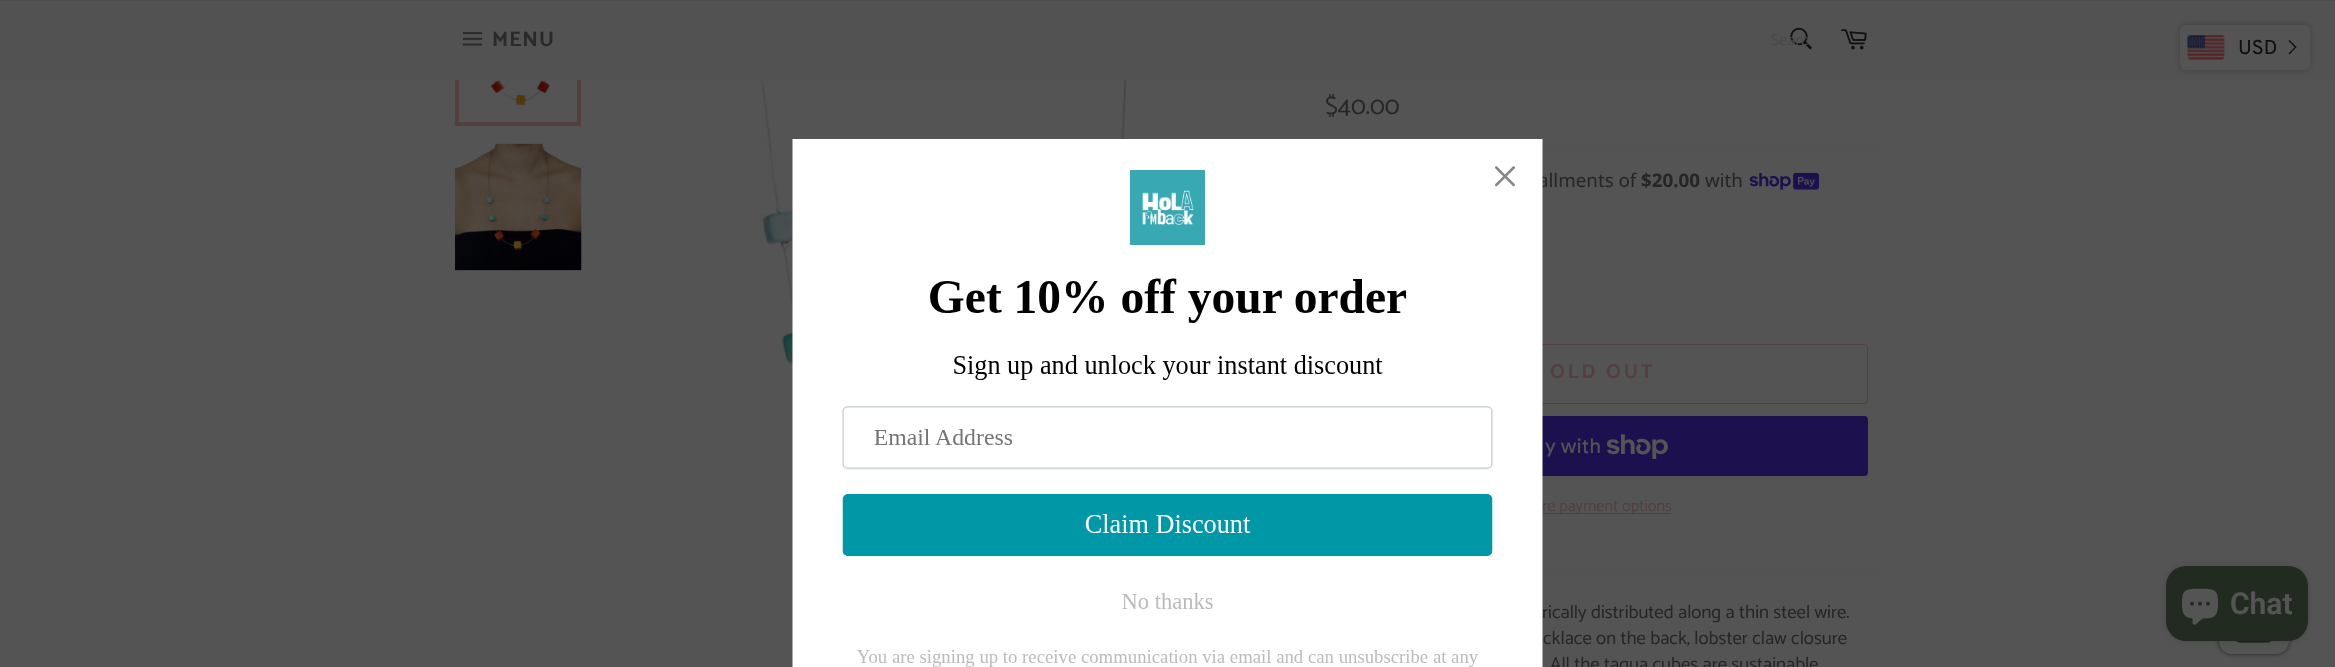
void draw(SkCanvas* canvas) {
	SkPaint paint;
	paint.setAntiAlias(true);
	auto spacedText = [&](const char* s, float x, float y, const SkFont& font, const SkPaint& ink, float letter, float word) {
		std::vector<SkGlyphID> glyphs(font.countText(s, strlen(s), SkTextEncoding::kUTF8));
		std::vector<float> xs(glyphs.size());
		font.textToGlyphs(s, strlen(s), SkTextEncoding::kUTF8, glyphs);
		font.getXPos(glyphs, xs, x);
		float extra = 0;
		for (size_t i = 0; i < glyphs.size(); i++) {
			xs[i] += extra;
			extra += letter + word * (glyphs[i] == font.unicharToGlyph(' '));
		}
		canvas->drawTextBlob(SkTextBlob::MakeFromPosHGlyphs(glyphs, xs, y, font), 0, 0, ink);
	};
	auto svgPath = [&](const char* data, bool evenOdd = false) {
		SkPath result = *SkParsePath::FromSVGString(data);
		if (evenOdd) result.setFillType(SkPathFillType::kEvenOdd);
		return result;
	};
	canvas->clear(0xffffffff);
	canvas->drawImageRect(SkImages::DeferredFromEncodedData(SkData::MakeFromFileName("img6.png")), SkRect::MakeXYWH(479, 80, 81, 26), SkSamplingOptions());
	paint.setStroke(true);
	paint.setStrokeWidth(4);
	paint.setColor(0xfffcbfbf);
	canvas->drawRect(SkRect::MakeXYWH(457, -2, 122, 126), paint);
	paint.setStroke(false);
	paint.setColor(0xfffaf7f7);
	canvas->drawRect(SkRect::MakeXYWH(0, 1, 2335, 79), paint);
	paint.setColor(0xfff0e7e7);
	canvas->drawRect(SkRect::MakeXYWH(0, 0, 2335, 1), paint);
	canvas->drawImageRect(SkImages::DeferredFromEncodedData(SkData::MakeFromFileName("img2.png")), SkRect::MakeXYWH(462, 32, 21, 14), SkSamplingOptions());
	SkFont f1(fontMgr->matchFamilyStyle("Catamaran", SkFontStyle::Bold()), 21);
	f1.setSubpixel(true);
	paint.setColor(0xff818080);
	spacedText("MENU", 492, 46, f1, paint, 1, 0);
	canvas->drawImageRect(SkImages::DeferredFromEncodedData(SkData::MakeFromFileName("img3.png")), SkRect::MakeXYWH(1790, 27, 22, 23), SkSamplingOptions());
	SkFont f2(fontMgr->matchFamilyStyle("Catamaran", SkFontStyle::Normal()), 16.25);
	f2.setSubpixel(true);
	paint.setColor(0xffdedcdc);
	canvas->drawString("Searc", 1771, 45, f2, paint);
	canvas->drawImageRect(SkImages::DeferredFromEncodedData(SkData::MakeFromFileName("img4.png")), SkRect::MakeXYWH(1841, 29, 26, 21), SkSamplingOptions());
	paint.setColor(0x40212b36);
	paint.setMaskFilter(SkMaskFilter::MakeBlur(kNormal_SkBlurStyle, 3));
	canvas->drawRoundRect(SkRect::MakeXYWH(2180, 25, 130, 45), 6, 6, paint);
	paint.setMaskFilter(nullptr);
	paint.setColor(0xffffffff);
	canvas->drawRoundRect(SkRect::MakeXYWH(2180, 25, 130, 45), 6, 6, paint);
	canvas->drawImageRect(SkImages::DeferredFromEncodedData(SkData::MakeFromFileName("img5.png")), SkRect::MakeXYWH(2187, 35, 38, 25), SkSamplingOptions());
	SkFont f3(fontMgr->matchFamilyStyle("Overpass", SkFontStyle::Normal()), 20);
	f3.setSubpixel(true);
	paint.setColor(0xff212b36);
	canvas->drawString("USD", 2238, 54, f3, paint);
	canvas->drawPath(svgPath("M2288.5 41L2289.5 40L2296.5 47L2295.5 48Z"), paint);
	canvas->drawPath(svgPath("M2288.5 53.5L2295.5 46.5L2296.5 47L2289.5 54.5Z"), paint);
	canvas->drawImageRect(SkImages::DeferredFromEncodedData(SkData::MakeFromFileName("img7.png")), SkRect::MakeXYWH(455, 143, 127, 128), SkSamplingOptions());
	canvas->drawImageRect(SkImages::DeferredFromEncodedData(SkData::MakeFromFileName("img8.png")), SkRect::MakeXYWH(748, 80, 385, 474), SkSamplingOptions());
	SkFont f4(fontMgr->matchFamilyStyle("Catamaran", SkFontStyle::Normal()), 25);
	f4.setSubpixel(true);
	paint.setColor(0xff737373);
	canvas->drawString("$40.00", 1325, 114, f4, paint);
	paint.setColor(0xfff7f7f7);
	canvas->drawRect(SkRect::MakeXYWH(1542, 145, 338, 1), paint);
	SkFont f5(fontMgr->matchFamilyStyle("Noto Sans", SkFontStyle::Normal()), 18.75);
	f5.setSubpixel(true);
	paint.setColor(0xff737373);
	canvas->drawString("allments of", 1538, 187, f5, paint);
	SkFont f6(fontMgr->matchFamilyStyle("Noto Sans", SkFontStyle::Bold()), 18.75);
	f6.setSubpixel(true);
	canvas->drawString("$20.00", 1641, 187, f6, paint);
	canvas->drawString("with", 1705, 187, f5, paint);
	canvas->drawImageRect(SkImages::DeferredFromEncodedData(SkData::MakeFromFileName("img9.png")), SkRect::MakeXYWH(1749, 173, 70, 17), SkSamplingOptions());
	paint.setStroke(true);
	paint.setStrokeWidth(1);
	paint.setColor(0xfffcbfbf);
	canvas->drawRoundRect(SkRect::MakeXYWH(1325.5, 344.5, 542, 59), 3.5, 3.5, paint);
	SkFont f7(fontMgr->matchFamilyStyle("Catamaran", SkFontStyle::Bold()), 20);
	f7.setSubpixel(true);
	paint.setStroke(false);
	spacedText("OLD OUT", 1550, 378, f7, paint, 3, 0);
	paint.setColor(0xff5433eb);
	canvas->drawRoundRect(SkRect::MakeXYWH(1325, 416, 543, 60), 4, 4, paint);
	SkFont f8(fontMgr->matchFamilyStyle("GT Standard", SkFontStyle::Normal()), 20);
	f8.setSubpixel(true);
	paint.setColor(0xffffffff);
	canvas->drawString("y with", 1545, 453, f8, paint);
	canvas->drawImageRect(SkImages::DeferredFromEncodedData(SkData::MakeFromFileName("img10.png")), SkRect::MakeXYWH(1606, 434, 62, 25), SkSamplingOptions());
	paint.setColor(0xfffcbfbf);
	canvas->drawRect(SkRect::MakeXYWH(1542, 513, 129, 1), paint);
	canvas->drawString("re payment options", 1542, 511, f2, paint);
	paint.setColor(0xfff7f7f7);
	canvas->drawRect(SkRect::MakeXYWH(1542, 575, 338, 1), paint);
	SkFont f9(fontMgr->matchFamilyStyle("Catamaran", SkFontStyle::Normal()), 18.75);
	f9.setSubpixel(true);
	paint.setColor(0xff737373);
	canvas->drawString("rically distributed along a thin steel wire.", 1542, 618, f9, paint);
	canvas->drawString("cklace on the back, lobster claw closure", 1543, 644, f9, paint);
	canvas->drawString("All the tagua cubes are sustainable", 1550, 670, f9, paint);
	canvas->save();
	canvas->clipPath(svgPath("M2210 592H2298V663H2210ZM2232 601H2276C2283 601 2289 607 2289 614V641C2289 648 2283 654 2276 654H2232C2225 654 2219 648 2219 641V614C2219 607 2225 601 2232 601Z", true), true);
	paint.setColor(0x94000000);
	paint.setMaskFilter(SkMaskFilter::MakeBlur(kNormal_SkBlurStyle, 2.5));
	canvas->drawRoundRect(SkRect::MakeXYWH(2219, 601, 70, 53), 13, 13, paint);
	paint.setMaskFilter(nullptr);
	canvas->restore();
	canvas->drawImageRect(SkImages::DeferredFromEncodedData(SkData::MakeFromFileName("img12.png")), SkRect::MakeXYWH(2236, 641, 35, 2), SkSamplingOptions());
	paint.setColor(0x26000000);
	paint.setMaskFilter(SkMaskFilter::MakeBlur(kNormal_SkBlurStyle, 3));
	canvas->drawRoundRect(SkRect::MakeXYWH(2166, 566, 142, 75), 20, 20, paint);
	paint.setMaskFilter(nullptr);
	paint.setColor(0xff648161);
	canvas->drawRoundRect(SkRect::MakeXYWH(2166, 566, 142, 75), 20, 20, paint);
	canvas->drawImageRect(SkImages::DeferredFromEncodedData(SkData::MakeFromFileName("img11.png")), SkRect::MakeXYWH(2182, 588, 36, 37), SkSamplingOptions());
	SkFont f10(fontMgr->matchFamilyStyle("Roboto", SkFontStyle(600, SkFontStyle::kNormal_Width, SkFontStyle::kUpright_Slant)), 30);
	f10.setSubpixel(true);
	paint.setColor(0xffffffff);
	canvas->drawString("Chat", 2230, 614, f10, paint);
	canvas->drawImageRect(SkImages::DeferredFromEncodedData(SkData::MakeFromFileName("img1.png")), SkRect::MakeXYWH(0, 0, 2335, 667), SkSamplingOptions());
}
